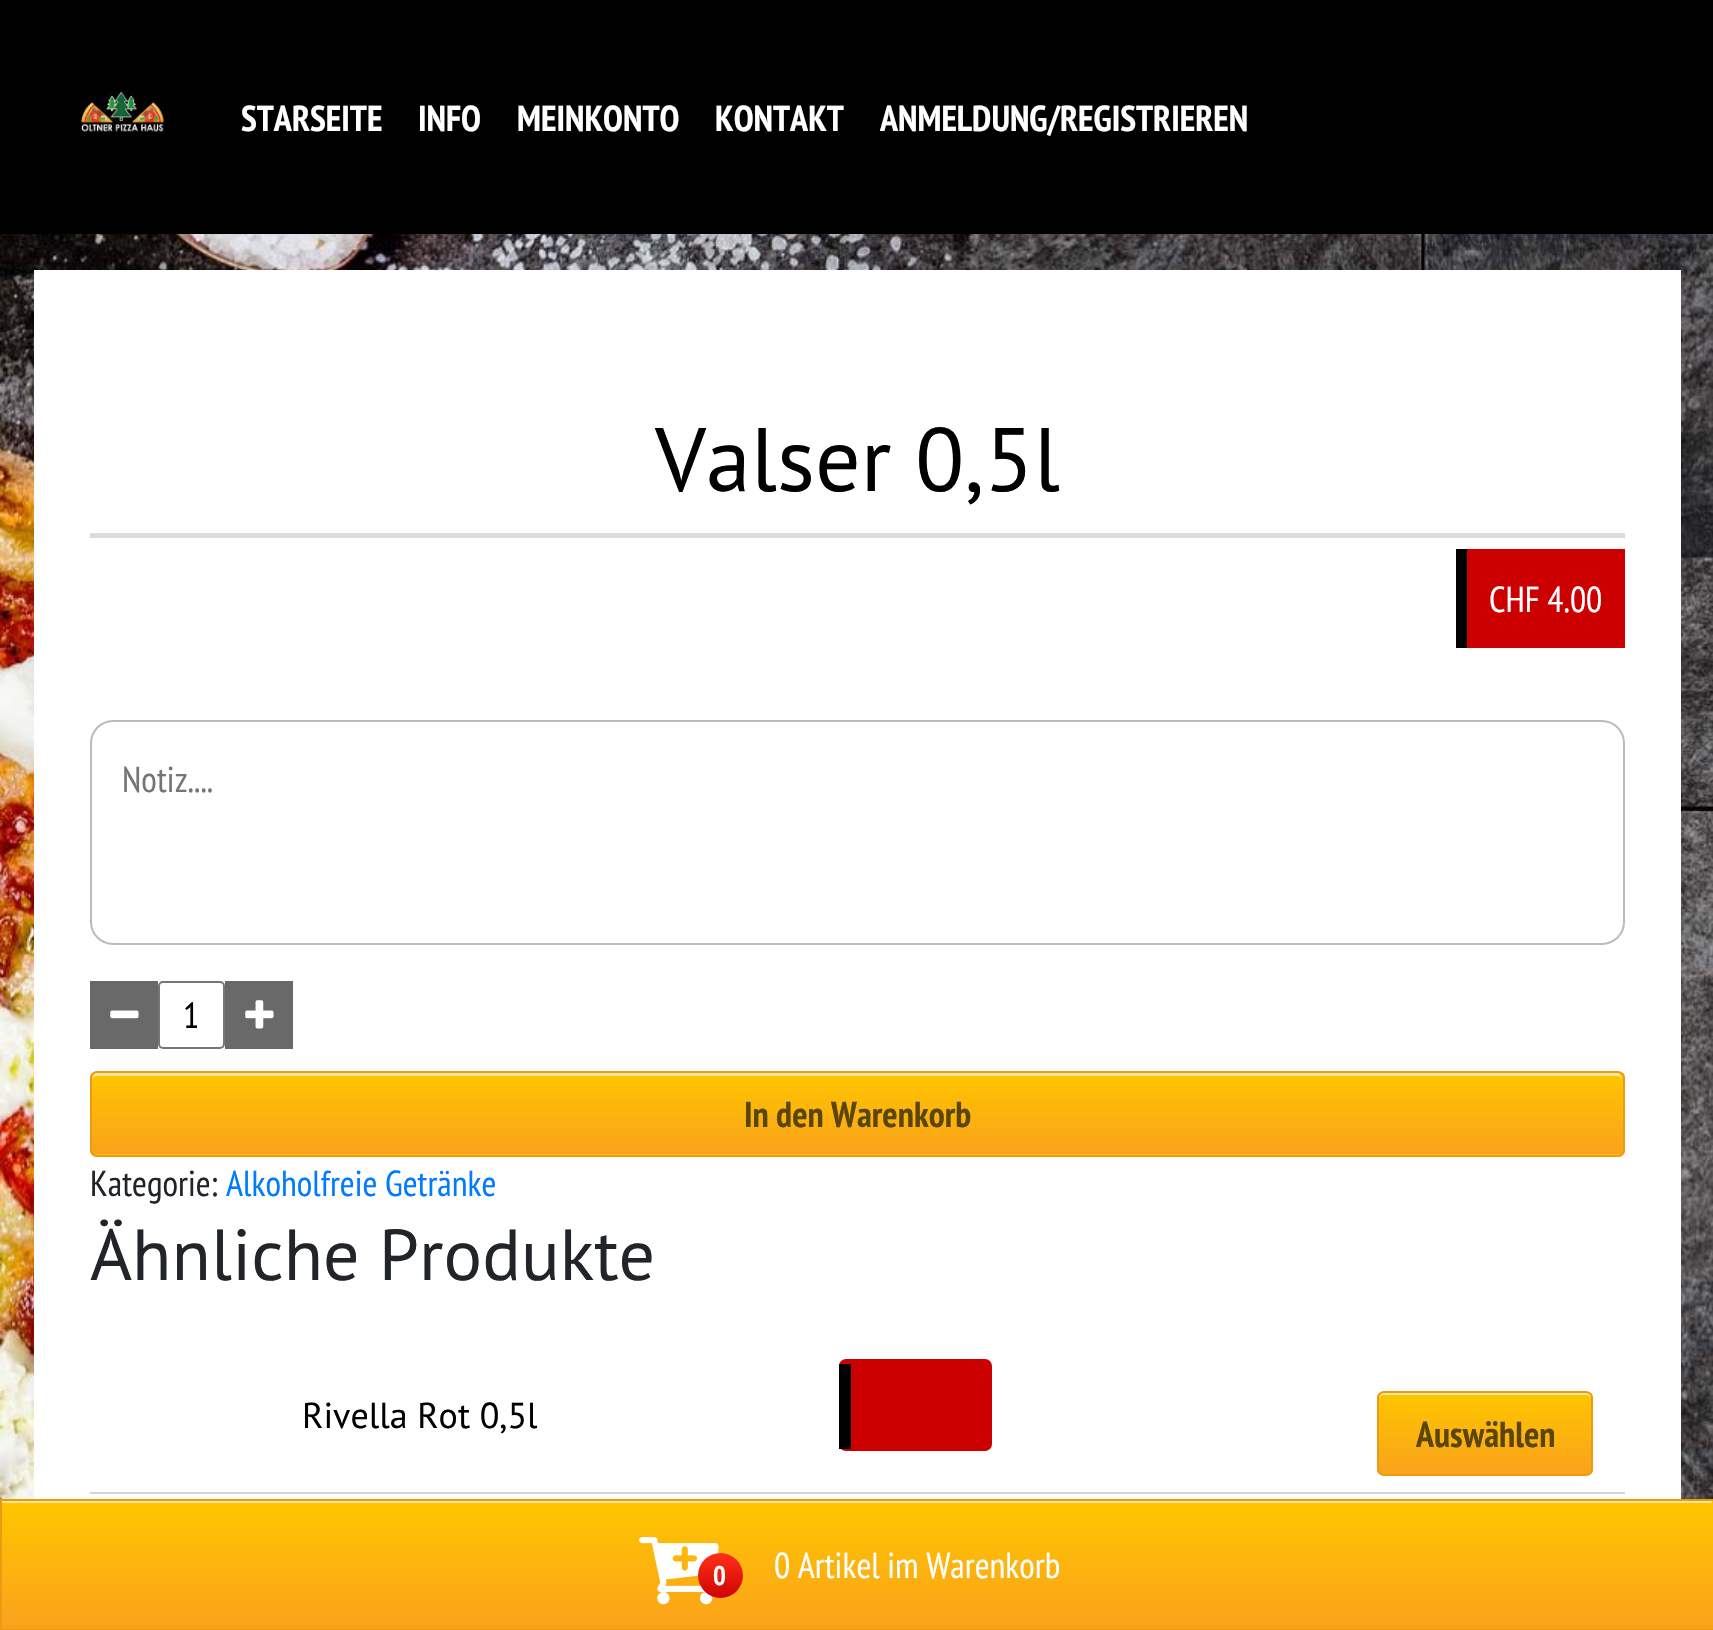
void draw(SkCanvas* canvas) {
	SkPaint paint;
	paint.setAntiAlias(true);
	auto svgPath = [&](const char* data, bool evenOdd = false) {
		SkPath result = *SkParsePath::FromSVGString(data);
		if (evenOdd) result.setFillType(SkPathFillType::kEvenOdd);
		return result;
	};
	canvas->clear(0xffffffff);
	canvas->drawImageRect(SkImages::DeferredFromEncodedData(SkData::MakeFromFileName("img1.png")), SkRect::MakeXYWH(0, 234, 1713, 1265), SkSamplingOptions());
	paint.setColor(0xff000000);
	canvas->drawRect(SkRect::MakeXYWH(0, 0, 1713, 234), paint);
	canvas->drawImageRect(SkImages::DeferredFromEncodedData(SkData::MakeFromFileName("img2.png")), SkRect::MakeXYWH(81, 91, 84, 41), SkSamplingOptions());
	SkFont f1(fontMgr->matchFamilyStyle("PT Sans Narrow", SkFontStyle::Bold()), 36);
	f1.setSubpixel(true);
	paint.setColor(0xffffffff);
	canvas->drawString("STARSEITE", 241, 131, f1, paint);
	canvas->drawString("INFO", 418, 131, f1, paint);
	canvas->drawString("MEINKONTO", 517, 131, f1, paint);
	canvas->drawString("KONTAKT", 715, 131, f1, paint);
	canvas->drawString("ANMELDUNG/REGISTRIEREN", 880, 131, f1, paint);
	{
		const SkColor colors[] = {0xfffaa21b, 0xffffc600};
		const float stops[] = {0, 1};
		const SkPoint ends[] = {{857, 1629}, {857, 1501}};
		paint.setShader(SkGradientShader::MakeLinear(ends, colors, stops, 2, SkTileMode::kClamp));
		paint.setAlpha(255);
	}
	canvas->drawRect(SkRect::MakeXYWH(2, 1501, 1711, 128), paint);
	paint.setShader(nullptr);
	paint.setColor(0xffffe899);
	canvas->drawRect(SkRect::MakeXYWH(2, 1501, 1710, 2), paint);
	paint.setStroke(true);
	paint.setStrokeWidth(2);
	paint.setColor(0xffec9a10);
	canvas->drawRect(SkRect::MakeXYWH(1, 1500, 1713, 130), paint);
	canvas->drawImageRect(SkImages::DeferredFromEncodedData(SkData::MakeFromFileName("img3.png")), SkRect::MakeXYWH(639, 1537, 80, 68), SkSamplingOptions());
	paint.setStroke(false);
	{
		const SkColor colors[] = {0xffff3019, 0xffcf0404};
		const float stops[] = {0, 1};
		const SkPoint ends[] = {{720, 1553}, {720, 1598}};
		paint.setShader(SkGradientShader::MakeLinear(ends, colors, stops, 2, SkTileMode::kClamp));
		paint.setAlpha(255);
	}
	canvas->drawCircle(720.5, 1575.5, 22.5, paint);
	SkFont f2(fontMgr->matchFamilyStyle("PT Sans Narrow", SkFontStyle::Bold()), 27);
	f2.setSubpixel(true);
	paint.setShader(nullptr);
	paint.setColor(0xffffffff);
	canvas->drawString("0", 713, 1585, f2, paint);
	SkFont f3(fontMgr->matchFamilyStyle("PT Sans Narrow", SkFontStyle::Normal()), 36);
	f3.setSubpixel(true);
	canvas->drawString("0 Artikel im Warenkorb", 774, 1578, f3, paint);
	canvas->drawRect(SkRect::MakeXYWH(34, 270, 1647, 1229), paint);
	paint.setColor(0xffdbdbdb);
	canvas->drawRect(SkRect::MakeXYWH(90, 533, 1535, 5), paint);
	SkFont f4(fontMgr->matchFamilyStyle("PT Sans", SkFontStyle::Normal()), 90);
	f4.setSubpixel(true);
	paint.setColor(0xff000000);
	canvas->drawString("Valser 0,5l", 655, 491, f4, paint);
	paint.setColor(0xffcc0000);
	canvas->drawRect(SkRect::MakeXYWH(1467, 549, 158, 99), paint);
	paint.setColor(0xff000000);
	canvas->drawRect(SkRect::MakeXYWH(1456, 549, 11, 99), paint);
	paint.setColor(0xffffffff);
	canvas->drawString("CHF 4.00", 1489, 612, f3, paint);
	paint.setStroke(true);
	paint.setColor(0xffbbbbbb);
	canvas->drawRoundRect(SkRect::MakeXYWH(91, 721, 1533, 223), 22, 22, paint);
	paint.setStroke(false);
	paint.setColor(0xff757575);
	canvas->drawString("Notiz....", 122, 792, f3, paint);
	paint.setColor(0xff696969);
	canvas->drawRect(SkRect::MakeXYWH(90, 981, 68, 68), paint);
	canvas->drawImageRect(SkImages::DeferredFromEncodedData(SkData::MakeFromFileName("img4.png")), SkRect::MakeXYWH(110, 1010, 29, 9), SkSamplingOptions());
	paint.setStroke(true);
	paint.setColor(0xff767676);
	canvas->drawRoundRect(SkRect::MakeXYWH(159, 982, 65, 66), 4, 4, paint);
	paint.setStroke(false);
	paint.setColor(0xff000000);
	canvas->drawString("1", 183, 1028, f3, paint);
	paint.setColor(0xff696969);
	canvas->drawRect(SkRect::MakeXYWH(225, 981, 68, 68), paint);
	canvas->drawImageRect(SkImages::DeferredFromEncodedData(SkData::MakeFromFileName("img5.png")), SkRect::MakeXYWH(245, 1000, 29, 29), SkSamplingOptions());
	canvas->save();
	canvas->clipPath(svgPath("M97 1071H1618C1622 1071 1625 1074 1625 1078V1150C1625 1154 1622 1157 1618 1157H97C93 1157 90 1154 90 1150V1078C90 1074 93 1071 97 1071Z"), true);
	{
		const SkColor colors[] = {0xfffaa21b, 0xffffc600};
		const float stops[] = {0, 1};
		const SkPoint ends[] = {{857, 1154}, {857, 1073}};
		paint.setShader(SkGradientShader::MakeLinear(ends, colors, stops, 2, SkTileMode::kClamp));
		paint.setAlpha(255);
	}
	canvas->drawRect(SkRect::MakeXYWH(90, 1073, 1535, 81), paint);
	{
		const SkColor colors[] = {0xfffaa21b, 0xffffc600};
		const float stops[] = {0, 1};
		const SkPoint ends[] = {{857, 1235}, {857, 1154}};
		paint.setShader(SkGradientShader::MakeLinear(ends, colors, stops, 2, SkTileMode::kClamp));
		paint.setAlpha(255);
	}
	canvas->drawRect(SkRect::MakeXYWH(90, 1154, 1535, 3), paint);
	canvas->restore();
	paint.setShader(nullptr);
	paint.setColor(0xffffe899);
	canvas->drawPath(svgPath("M97 1076H1618C1620 1076 1622 1078 1622 1080C1622 1077 1621 1073 1617 1073H97C93 1073 92 1077 92 1080C92 1078 94 1076 97 1076Z"), paint);
	paint.setStroke(true);
	paint.setColor(0xffec9a10);
	canvas->drawRoundRect(SkRect::MakeXYWH(91, 1072, 1533, 84), 6, 6, paint);
	paint.setStroke(false);
	paint.setColor(0xff5a460a);
	canvas->drawString("In den Warenkorb", 744, 1127, f1, paint);
	paint.setColor(0xff212529);
	canvas->drawString("Kategorie:", 90, 1196, f3, paint);
	paint.setColor(0xff007bff);
	canvas->drawString("Alkoholfreie Getränke", 226, 1196, f3, paint);
	SkFont f5(fontMgr->matchFamilyStyle("PT Sans", SkFontStyle::Normal()), 72);
	f5.setSubpixel(true);
	paint.setColor(0xff212529);
	canvas->drawString("Ähnliche Produkte", 90, 1280, f5, paint);
	paint.setColor(0xffd6d6d6);
	canvas->drawRect(SkRect::MakeXYWH(90, 1492, 1535, 2), paint);
	SkFont f6(fontMgr->matchFamilyStyle("PT Sans", SkFontStyle::Normal()), 36);
	f6.setSubpixel(true);
	paint.setColor(0xff000000);
	canvas->drawString("Rivella Rot 0,5l", 302, 1428, f6, paint);
	paint.setColor(0xffcc0000);
	canvas->drawRoundRect(SkRect::MakeXYWH(839, 1359, 153, 92), 7, 7, paint);
	paint.setColor(0xff000000);
	canvas->drawRect(SkRect::MakeXYWH(839, 1364, 12, 85), paint);
	canvas->save();
	canvas->clipPath(svgPath("M1384 1391H1586C1590 1391 1593 1394 1593 1398V1469C1593 1473 1590 1476 1586 1476H1384C1380 1476 1377 1473 1377 1469V1398C1377 1394 1380 1391 1384 1391Z"), true);
	{
		const SkColor colors[] = {0xfffaa21b, 0xffffc600};
		const float stops[] = {0, 1};
		const SkPoint ends[] = {{1485, 1474}, {1485, 1393}};
		paint.setShader(SkGradientShader::MakeLinear(ends, colors, stops, 2, SkTileMode::kClamp));
		paint.setAlpha(255);
	}
	canvas->drawRect(SkRect::MakeXYWH(1377, 1393, 216, 81), paint);
	canvas->restore();
	paint.setShader(nullptr);
	paint.setColor(0xffffe899);
	canvas->drawPath(svgPath("M1384 1395H1586C1589 1395 1591 1397 1591 1400V1398C1591 1395 1589 1393 1586 1393H1384C1381 1393 1379 1395 1379 1398V1400C1379 1397 1381 1395 1384 1395Z"), paint);
	paint.setStroke(true);
	paint.setColor(0xffec9a10);
	canvas->drawRoundRect(SkRect::MakeXYWH(1378, 1392, 214, 83), 6, 6, paint);
	paint.setStroke(false);
	paint.setColor(0xff5a460a);
	canvas->drawString("Auswählen", 1416, 1447, f1, paint);
}
